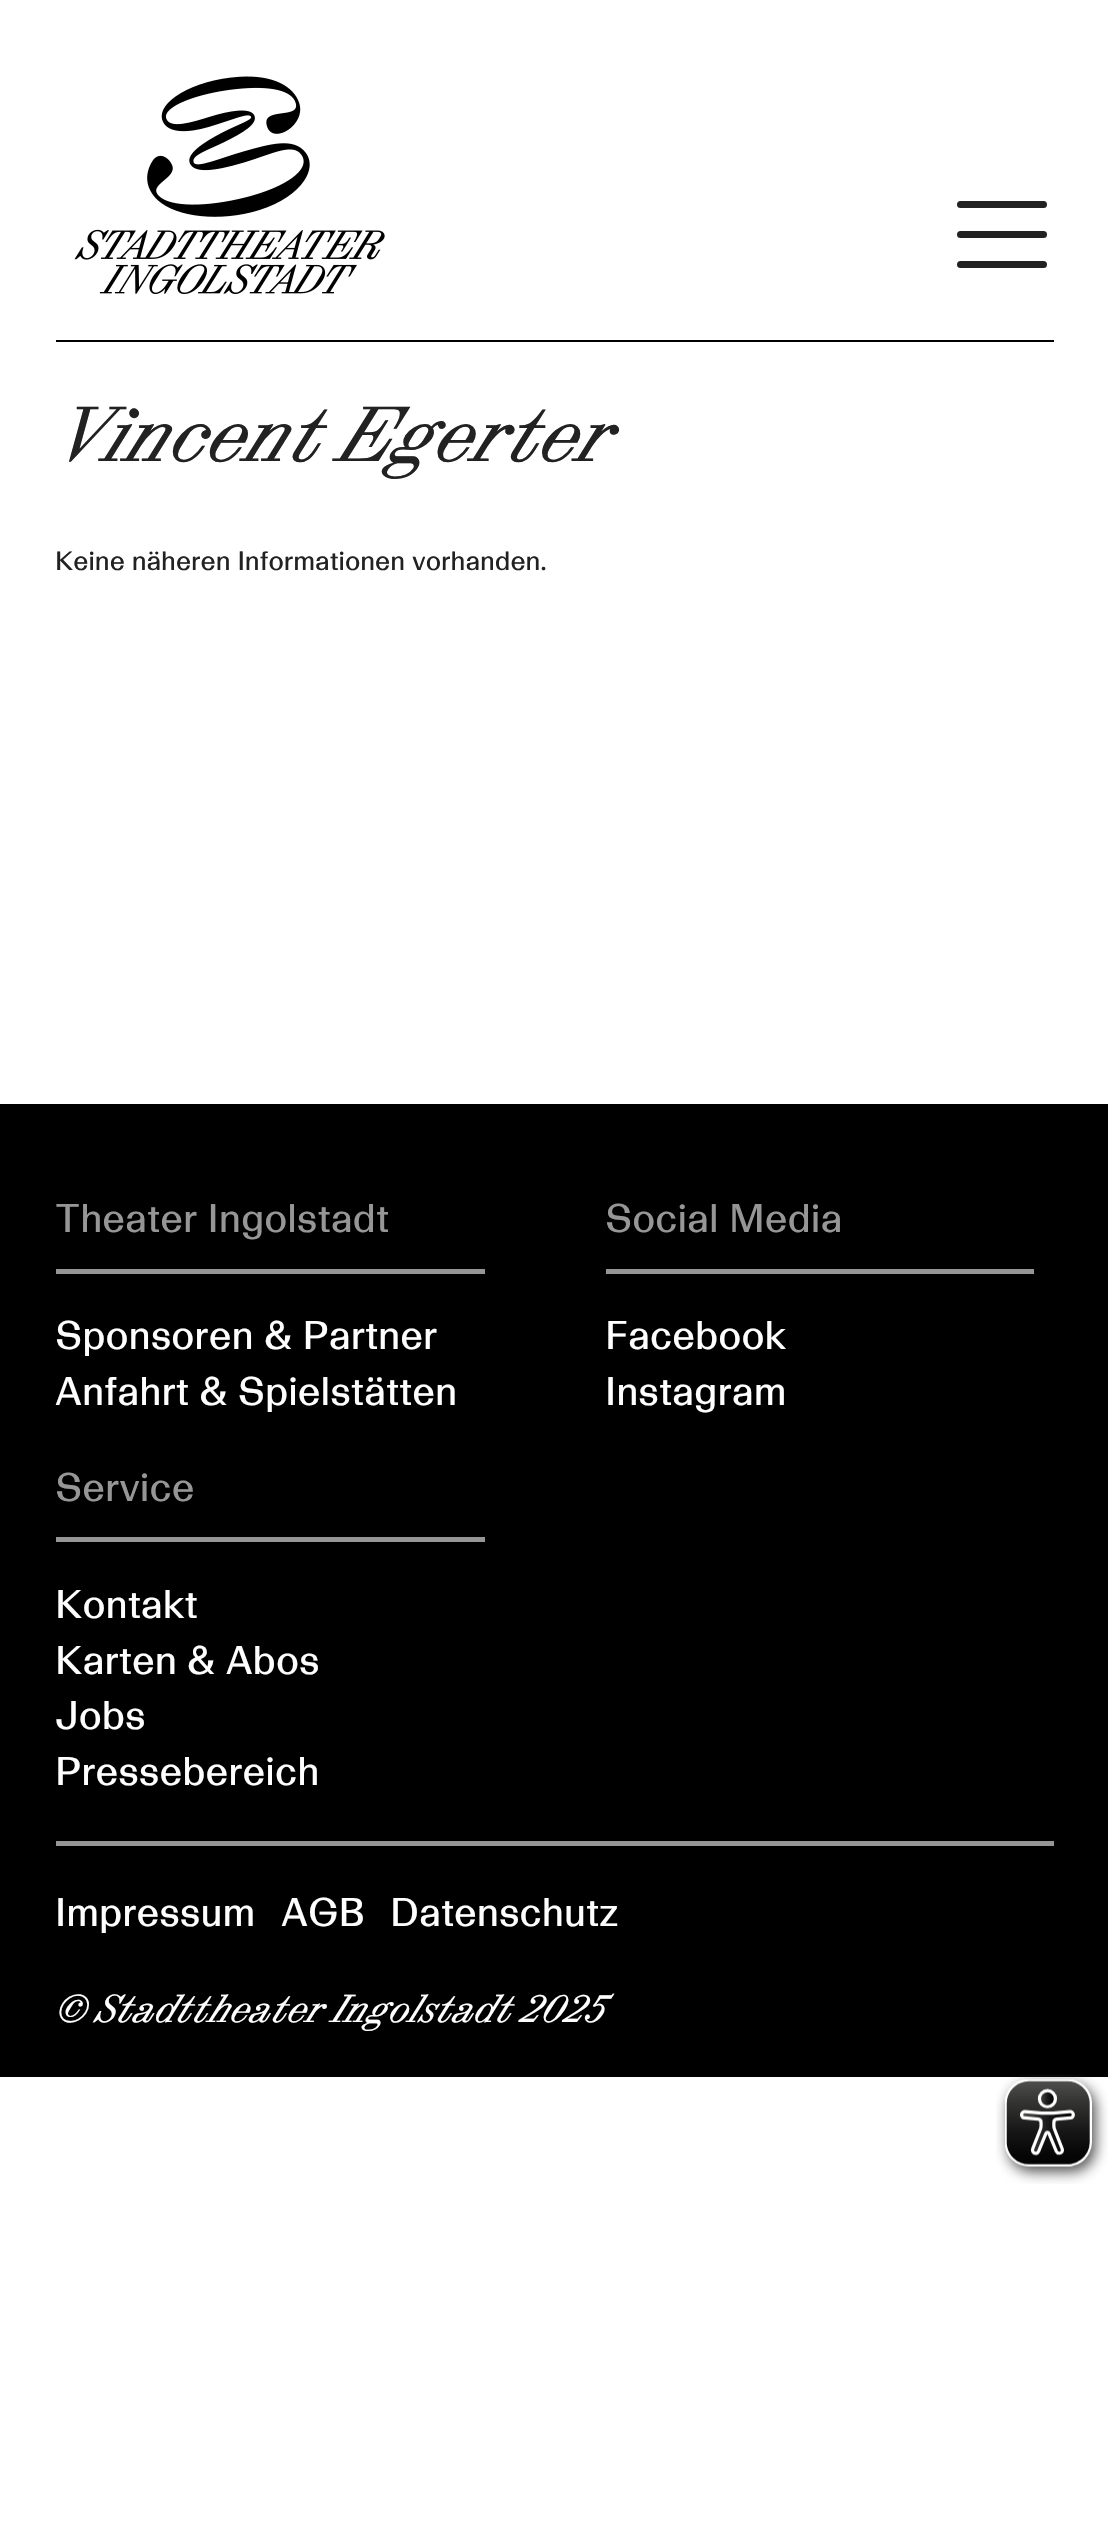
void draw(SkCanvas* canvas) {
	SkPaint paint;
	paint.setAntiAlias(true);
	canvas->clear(0xffffffff);
	paint.setColor(0xff000000);
	canvas->drawRect(SkRect::MakeXYWH(56, 340, 998, 2), paint);
	canvas->drawImageRect(SkImages::DeferredFromEncodedData(SkData::MakeFromFileName("img1.png")), SkRect::MakeXYWH(74, 76, 311, 218), SkSamplingOptions());
	paint.setColor(0xff222222);
	canvas->drawRoundRect(SkRect::MakeXYWH(957, 201, 90, 7), 3.5, 3.5, paint);
	canvas->drawRoundRect(SkRect::MakeXYWH(957, 231, 90, 7), 3.5, 3.5, paint);
	canvas->drawRoundRect(SkRect::MakeXYWH(957, 261, 90, 7), 3.5, 3.5, paint);
	SkFont f1(fontMgr->matchFamilyStyle("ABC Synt", SkFontStyle::Normal()), 79.75);
	f1.setSubpixel(true);
	canvas->drawString("Vincent Egerter", 55, 461, f1, paint);
	SkFont f2(fontMgr->matchFamilyStyle("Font", SkFontStyle::Normal()), 26.6);
	f2.setSubpixel(true);
	canvas->drawString("Keine näheren Informationen vorhanden.", 55, 570, f2, paint);
	paint.setColor(0xff000000);
	canvas->drawRect(SkRect::MakeXYWH(0, 1104, 1108, 973), paint);
	paint.setColor(0xff969696);
	canvas->drawRect(SkRect::MakeXYWH(56, 1269, 429, 5), paint);
	SkFont f3(fontMgr->matchFamilyStyle("Font", SkFontStyle::Normal()), 39.9);
	f3.setSubpixel(true);
	canvas->drawString("Theater Ingolstadt", 55, 1232, f3, paint);
	paint.setColor(0xffffffff);
	canvas->drawString("Sponsoren & Partner", 55, 1349, f3, paint);
	canvas->drawString("Anfahrt & Spielstätten", 55, 1405, f3, paint);
	paint.setColor(0xff969696);
	canvas->drawRect(SkRect::MakeXYWH(606, 1269, 428, 5), paint);
	canvas->drawString("Social Media", 605, 1232, f3, paint);
	paint.setColor(0xffffffff);
	canvas->drawString("Facebook", 605, 1349, f3, paint);
	canvas->drawString("Instagram", 605, 1405, f3, paint);
	paint.setColor(0xff969696);
	canvas->drawRect(SkRect::MakeXYWH(56, 1537, 429, 5), paint);
	canvas->drawString("Service", 55, 1501, f3, paint);
	paint.setColor(0xffffffff);
	canvas->drawString("Kontakt", 55, 1618, f3, paint);
	canvas->drawString("Karten & Abos", 55, 1674, f3, paint);
	canvas->drawString("Jobs", 55, 1729, f3, paint);
	canvas->drawString("Pressebereich", 55, 1785, f3, paint);
	paint.setColor(0xff969696);
	canvas->drawRect(SkRect::MakeXYWH(56, 1841, 998, 5), paint);
	paint.setColor(0xffffffff);
	canvas->drawString("Impressum", 55, 1926, f3, paint);
	canvas->drawString("AGB", 281, 1926, f3, paint);
	canvas->drawString("Datenschutz", 390, 1926, f3, paint);
	SkFont f4(fontMgr->matchFamilyStyle("ABC Synt", SkFontStyle::Normal()), 39.9);
	f4.setSubpixel(true);
	canvas->drawString("© Stadttheater Ingolstadt 2025", 55, 2022, f4, paint);
	canvas->drawImageRect(SkImages::DeferredFromEncodedData(SkData::MakeFromFileName("img2.png")), SkRect::MakeXYWH(996, 2074, 112, 110), SkSamplingOptions());
}
